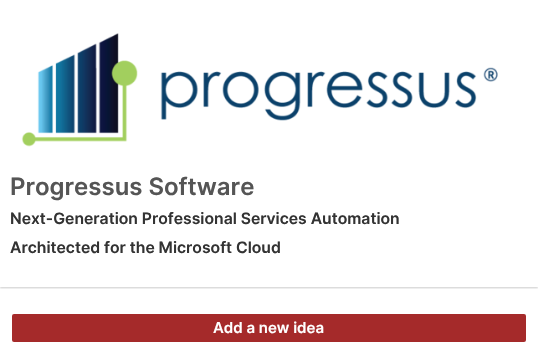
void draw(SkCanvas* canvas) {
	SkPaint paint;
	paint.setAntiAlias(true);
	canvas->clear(0xffffffff);
	canvas->save();
	canvas->clipRect(SkRect::MakeXYWH(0, 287, 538, 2));
	paint.setColor(0x33000000);
	paint.setMaskFilter(SkMaskFilter::MakeBlur(kNormal_SkBlurStyle, 1));
	canvas->drawRect(SkRect::MakeXYWH(0, 1, 538, 287), paint);
	paint.setMaskFilter(nullptr);
	canvas->restore();
	canvas->drawImageRect(SkImages::DeferredFromEncodedData(SkData::MakeFromFileName("img1.png")), SkRect::MakeXYWH(21, 33, 477, 114), SkSamplingOptions());
	SkFont f1(fontMgr->matchFamilyStyle("Inter", SkFontStyle(600, SkFontStyle::kNormal_Width, SkFontStyle::kUpright_Slant)), 24);
	f1.setSubpixel(true);
	paint.setColor(0xff555555);
	canvas->drawString("Progressus Software", 10, 195, f1, paint);
	SkFont f2(fontMgr->matchFamilyStyle("Inter", SkFontStyle(600, SkFontStyle::kNormal_Width, SkFontStyle::kUpright_Slant)), 15.75);
	f2.setSubpixel(true);
	paint.setColor(0xff333333);
	canvas->drawString("Next-Generation Professional Services Automation", 10, 224, f2, paint);
	canvas->drawString("Architected for the Microsoft Cloud", 10, 253, f2, paint);
	paint.setColor(0xffa52a2a);
	canvas->drawRoundRect(SkRect::MakeXYWH(11, 313, 516, 30), 3, 3, paint);
	paint.setStroke(true);
	paint.setStrokeWidth(2);
	paint.setColor(0xffffffff);
	canvas->drawRoundRect(SkRect::MakeXYWH(11, 313, 516, 30), 3, 3, paint);
	SkFont f3(fontMgr->matchFamilyStyle("Inter", SkFontStyle(600, SkFontStyle::kNormal_Width, SkFontStyle::kUpright_Slant)), 15);
	f3.setSubpixel(true);
	paint.setStroke(false);
	canvas->drawString("Add a new idea", 213, 333, f3, paint);
}
